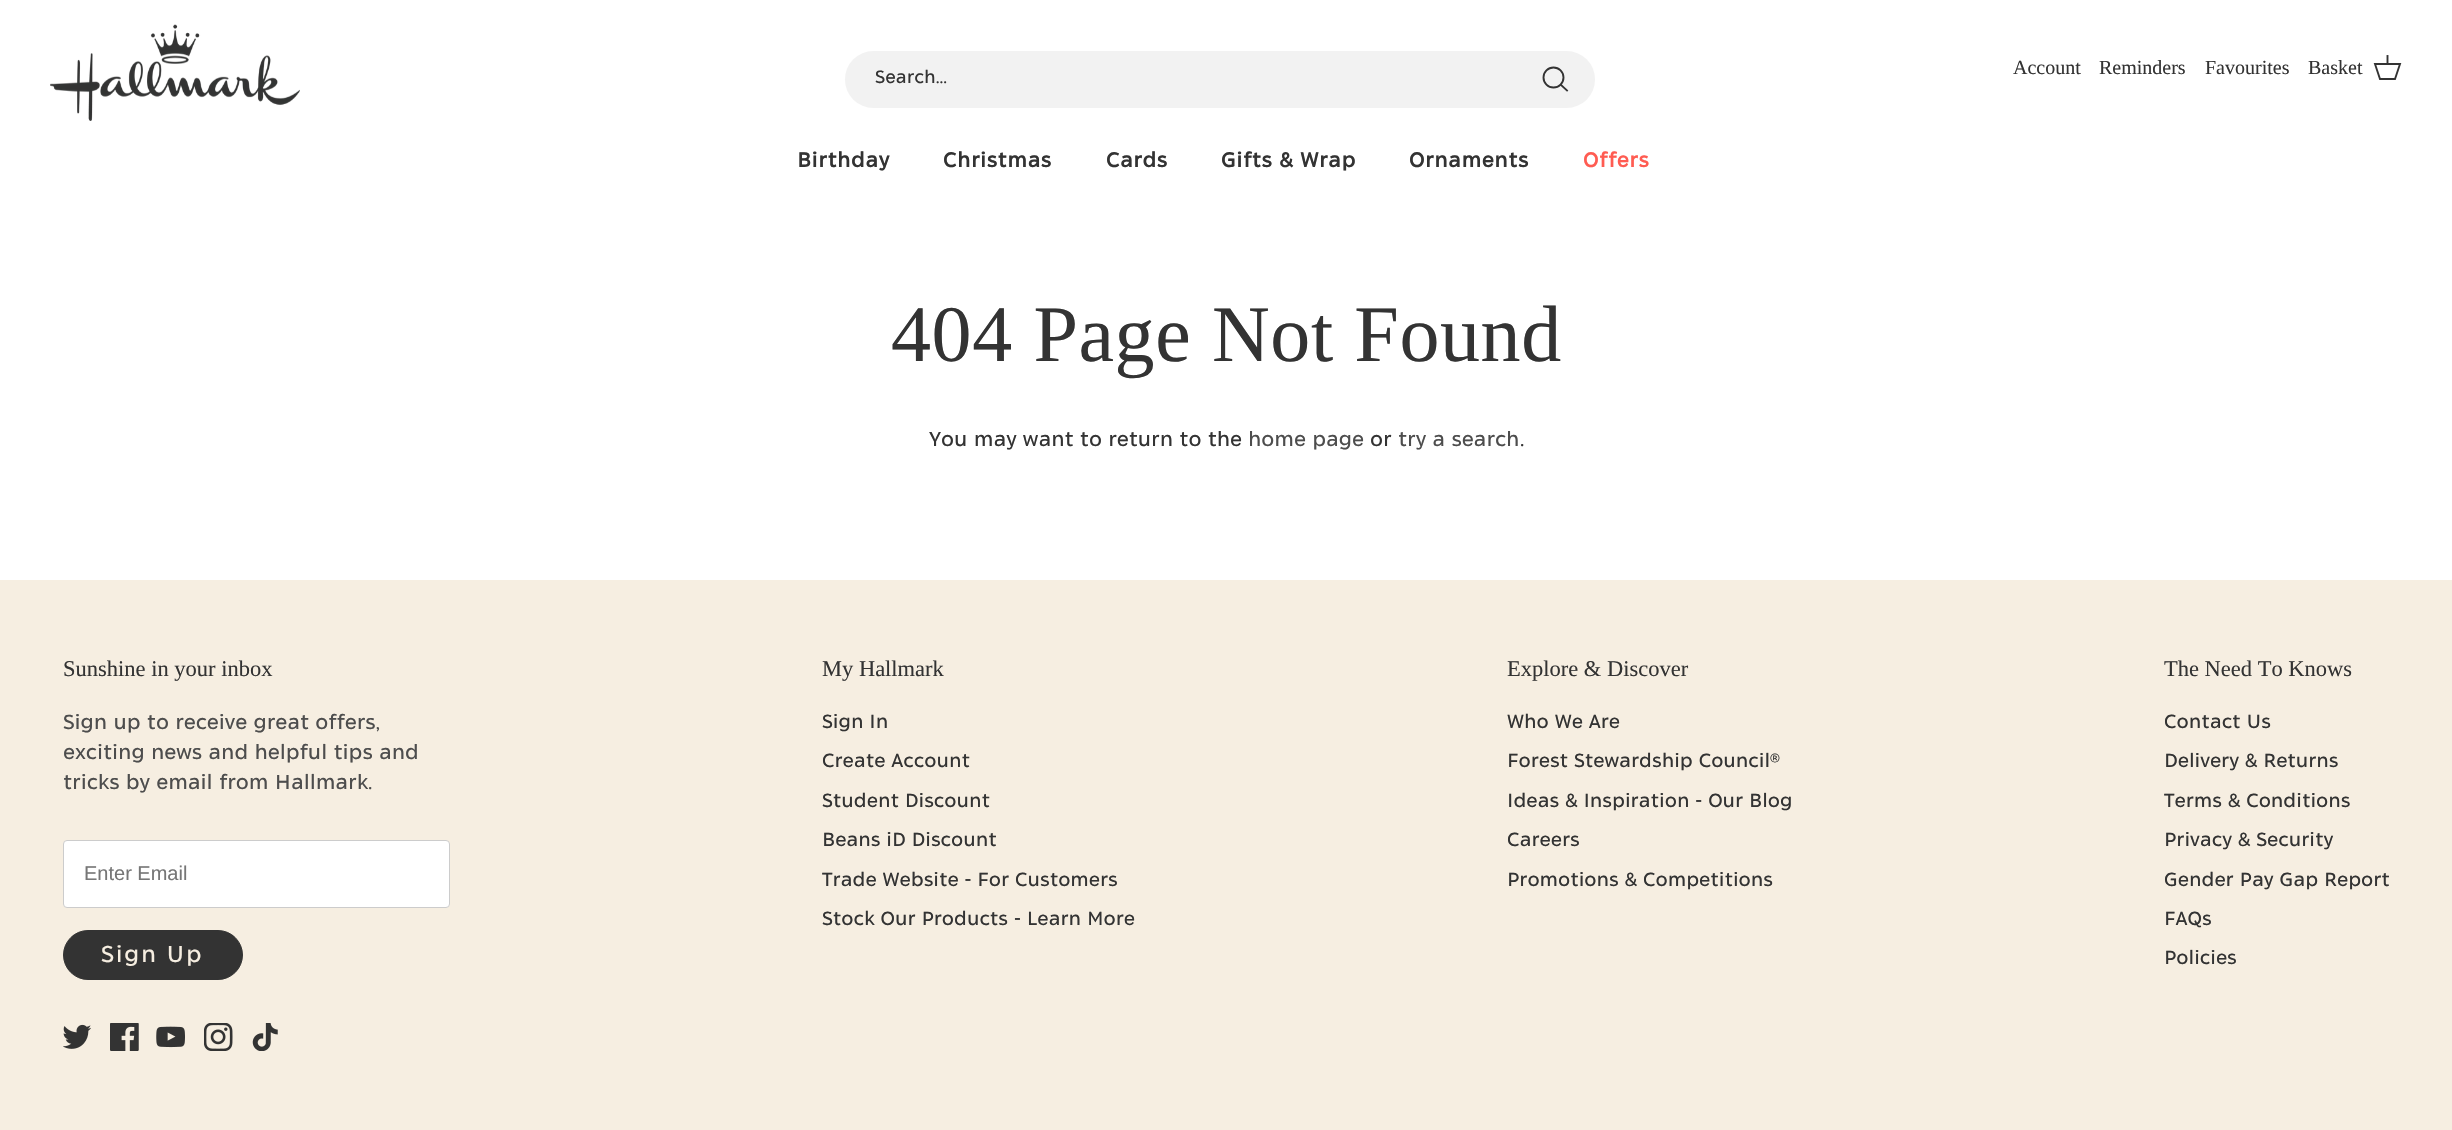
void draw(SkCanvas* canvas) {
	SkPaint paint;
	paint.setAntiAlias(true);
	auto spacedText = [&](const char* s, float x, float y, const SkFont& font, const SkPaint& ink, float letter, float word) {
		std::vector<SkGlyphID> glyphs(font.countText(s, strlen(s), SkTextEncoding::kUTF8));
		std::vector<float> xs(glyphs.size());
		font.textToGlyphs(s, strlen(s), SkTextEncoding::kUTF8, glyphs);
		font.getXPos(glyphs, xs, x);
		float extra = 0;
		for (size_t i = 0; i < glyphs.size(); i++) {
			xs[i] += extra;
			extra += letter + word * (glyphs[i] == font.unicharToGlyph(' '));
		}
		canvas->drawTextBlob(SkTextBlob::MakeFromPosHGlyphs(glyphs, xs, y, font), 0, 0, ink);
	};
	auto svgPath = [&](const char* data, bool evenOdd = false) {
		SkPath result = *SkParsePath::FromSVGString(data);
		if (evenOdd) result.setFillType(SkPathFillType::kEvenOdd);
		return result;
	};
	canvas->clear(0xffffffff);
	canvas->drawImageRect(SkImages::DeferredFromEncodedData(SkData::MakeFromFileName("img1.png")), SkRect::MakeXYWH(50, 24, 250, 97), SkSamplingOptions());
	SkFont f1(fontMgr->matchFamilyStyle("Liberation Serif", SkFontStyle::Normal()), 20);
	f1.setSubpixel(true);
	paint.setColor(0xff333333);
	canvas->drawString("Account", 2013, 74, f1, paint);
	canvas->drawString("Reminders", 2099, 74, f1, paint);
	canvas->drawString("Favourites", 2205, 74, f1, paint);
	canvas->drawString("Basket", 2308, 74, f1, paint);
	paint.setStroke(true);
	paint.setStrokeWidth(1.9);
	canvas->drawPath(svgPath("M2375 64H2400L2395 79H2380Z"), paint);
	paint.setStrokeCap(SkPaint::kSquare_Cap);
	canvas->drawPath(svgPath("M2387.5 64V56"), paint);
	paint.setStroke(false);
	paint.setColor(0xfff2f2f2);
	canvas->drawRoundRect(SkRect::MakeXYWH(845, 51, 750, 57), 28.5, 28.5, paint);
	SkFont f2(fontMgr->matchFamilyStyle("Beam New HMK", SkFontStyle(500, SkFontStyle::kNormal_Width, SkFontStyle::kUpright_Slant)), 17.5);
	f2.setSubpixel(true);
	paint.setColor(0xff333333);
	canvas->drawString("Search...", 875, 83, f2, paint);
	paint.setStroke(true);
	paint.setStrokeCap(SkPaint::kButt_Cap);
	canvas->drawCircle(1553.5, 77.5, 10, paint);
	paint.setStrokeCap(SkPaint::kSquare_Cap);
	canvas->drawPath(svgPath("M1561 85L1567 90.5"), paint);
	SkFont f3(fontMgr->matchFamilyStyle("Beam New HMK", SkFontStyle::Bold()), 20);
	f3.setSubpixel(true);
	paint.setStroke(false);
	spacedText("Birthday", 797, 167, f3, paint, 0.6, 0);
	spacedText("Christmas", 943, 167, f3, paint, 0.6, 0);
	spacedText("Cards", 1106, 167, f3, paint, 0.6, 0);
	spacedText("Gifts & Wrap", 1221, 167, f3, paint, 0.6, 0);
	spacedText("Ornaments", 1409, 167, f3, paint, 0.6, 0);
	paint.setColor(0xffff5c52);
	spacedText("Offers", 1583, 167, f3, paint, 0.6, 0);
	SkFont f4(fontMgr->matchFamilyStyle("Liberation Serif", SkFontStyle::Normal()), 80);
	f4.setSubpixel(true);
	paint.setColor(0xff333333);
	spacedText("404 Page Not Found", 891, 361, f4, paint, 0.6, 0);
	SkFont f5(fontMgr->matchFamilyStyle("Beam New HMK", SkFontStyle(500, SkFontStyle::kNormal_Width, SkFontStyle::kUpright_Slant)), 20);
	f5.setSubpixel(true);
	canvas->drawString("You may want to return to the", 929, 446, f5, paint);
	paint.setColor(0xff4d4d4d);
	canvas->drawString("home page", 1248, 446, f5, paint);
	paint.setColor(0xff333333);
	canvas->drawString("or", 1370, 446, f5, paint);
	paint.setColor(0xff4d4d4d);
	canvas->drawString("try a search", 1398, 446, f5, paint);
	paint.setColor(0xff333333);
	canvas->drawString(".", 1520, 446, f5, paint);
	paint.setColor(0xfff6eee1);
	canvas->drawRect(SkRect::MakeXYWH(0, 580, 2452, 550), paint);
	SkFont f6(fontMgr->matchFamilyStyle("Liberation Serif", SkFontStyle::Normal()), 22.5);
	f6.setSubpixel(true);
	paint.setColor(0xff333333);
	canvas->drawString("Sunshine in your inbox", 63, 676, f6, paint);
	paint.setColor(0xff4d4d4d);
	canvas->drawString("Sign up to receive great offers,", 63, 729, f5, paint);
	canvas->drawString("exciting news and helpful tips and", 63, 759, f5, paint);
	canvas->drawString("tricks by email from Hallmark.", 63, 789, f5, paint);
	paint.setColor(0xffffffff);
	canvas->drawRoundRect(SkRect::MakeXYWH(63.5, 840.5, 386, 67), 3.5, 3.5, paint);
	paint.setStroke(true);
	paint.setStrokeWidth(1);
	paint.setStrokeCap(SkPaint::kButt_Cap);
	paint.setColor(0xffcccccc);
	canvas->drawRoundRect(SkRect::MakeXYWH(63.5, 840.5, 386, 67), 3.5, 3.5, paint);
	SkFont f7(fontMgr->matchFamilyStyle("Liberation Sans", SkFontStyle::Normal()), 20);
	f7.setSubpixel(true);
	paint.setStroke(false);
	paint.setColor(0xff767676);
	canvas->drawString("Enter Email", 84, 880, f7, paint);
	paint.setColor(0xff333333);
	canvas->drawRoundRect(SkRect::MakeXYWH(63.5, 930.5, 179, 49), 24.5, 24.5, paint);
	paint.setStroke(true);
	canvas->drawRoundRect(SkRect::MakeXYWH(63.5, 930.5, 179, 49), 24.5, 24.5, paint);
	SkFont f8(fontMgr->matchFamilyStyle("Beam New HMK", SkFontStyle(500, SkFontStyle::kNormal_Width, SkFontStyle::kUpright_Slant)), 22.5);
	f8.setSubpixel(true);
	paint.setStroke(false);
	paint.setColor(0xfff6eee1);
	spacedText("Sign Up", 101, 962, f8, paint, 1.75, 0);
	canvas->drawImageRect(SkImages::DeferredFromEncodedData(SkData::MakeFromFileName("img2.png")), SkRect::MakeXYWH(63, 1024, 28, 25), SkSamplingOptions());
	canvas->drawImageRect(SkImages::DeferredFromEncodedData(SkData::MakeFromFileName("img3.png")), SkRect::MakeXYWH(110, 1023, 29, 28), SkSamplingOptions());
	canvas->drawImageRect(SkImages::DeferredFromEncodedData(SkData::MakeFromFileName("img4.png")), SkRect::MakeXYWH(156, 1026, 29, 22), SkSamplingOptions());
	canvas->drawImageRect(SkImages::DeferredFromEncodedData(SkData::MakeFromFileName("img5.png")), SkRect::MakeXYWH(204, 1023, 29, 28), SkSamplingOptions());
	canvas->drawImageRect(SkImages::DeferredFromEncodedData(SkData::MakeFromFileName("img6.png")), SkRect::MakeXYWH(252, 1023, 26, 28), SkSamplingOptions());
	paint.setColor(0xff333333);
	canvas->drawString("My Hallmark", 822, 676, f6, paint);
	SkFont f9(fontMgr->matchFamilyStyle("Beam New HMK", SkFontStyle(500, SkFontStyle::kNormal_Width, SkFontStyle::kUpright_Slant)), 18.75);
	f9.setSubpixel(true);
	canvas->drawString("Sign In", 822, 728, f9, paint);
	canvas->drawString("Create Account", 822, 767, f9, paint);
	canvas->drawString("Student Discount", 822, 807, f9, paint);
	canvas->drawString("Beans iD Discount", 822, 846, f9, paint);
	canvas->drawString("Trade Website - For Customers", 822, 886, f9, paint);
	canvas->drawString("Stock Our Products - Learn More", 822, 925, f9, paint);
	canvas->drawString("Explore & Discover", 1507, 676, f6, paint);
	canvas->drawString("Who We Are", 1507, 728, f9, paint);
	canvas->drawString("Forest Stewardship Council®", 1507, 767, f9, paint);
	canvas->drawString("Ideas & Inspiration - Our Blog", 1507, 807, f9, paint);
	canvas->drawString("Careers", 1507, 846, f9, paint);
	canvas->drawString("Promotions & Competitions", 1507, 886, f9, paint);
	canvas->drawString("The Need To Knows", 2164, 676, f6, paint);
	canvas->drawString("Contact Us", 2164, 728, f9, paint);
	canvas->drawString("Delivery & Returns", 2164, 767, f9, paint);
	canvas->drawString("Terms & Conditions", 2164, 807, f9, paint);
	canvas->drawString("Privacy & Security", 2164, 846, f9, paint);
	canvas->drawString("Gender Pay Gap Report", 2164, 886, f9, paint);
	canvas->drawString("FAQs", 2164, 925, f9, paint);
	canvas->drawString("Policies", 2164, 964, f9, paint);
}
